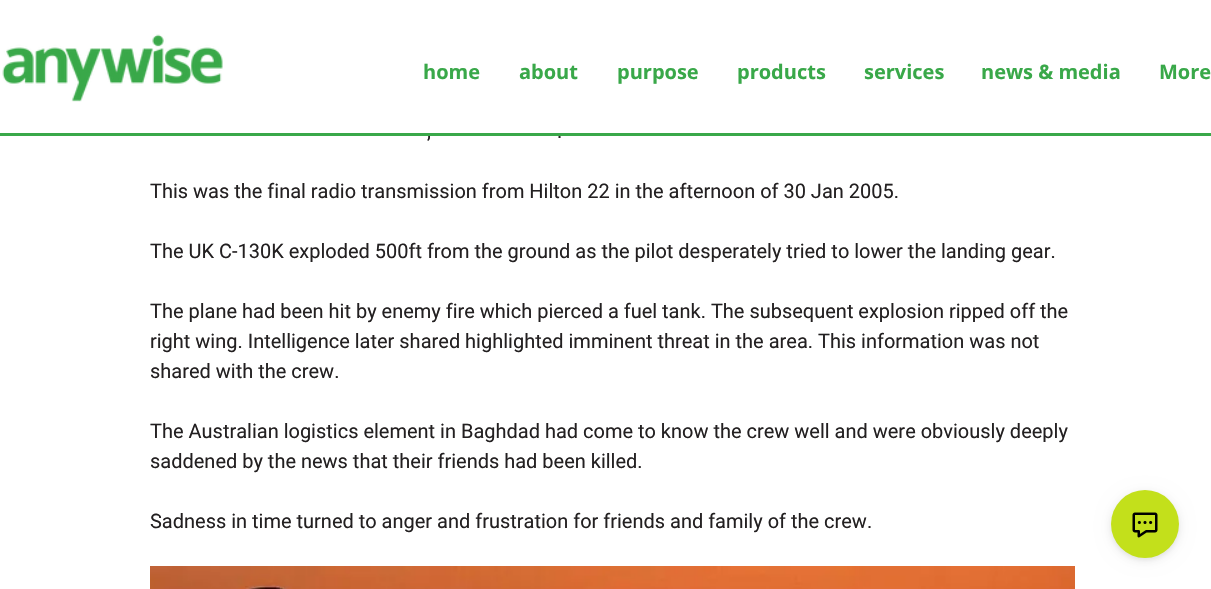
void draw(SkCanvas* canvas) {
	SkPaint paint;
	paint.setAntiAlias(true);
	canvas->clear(0xffffffff);
	canvas->drawImageRect(SkImages::DeferredFromEncodedData(SkData::MakeFromFileName("img1.png")), SkRect::MakeXYWH(2, 34, 221, 68), SkSamplingOptions());
	SkFont f1(fontMgr->matchFamilyStyle("Open Sans", SkFontStyle::Bold()), 20);
	f1.setSubpixel(true);
	paint.setColor(0xff39a849);
	canvas->drawString("home", 423, 79, f1, paint);
	canvas->drawString("about", 519, 79, f1, paint);
	canvas->drawString("purpose", 617, 79, f1, paint);
	canvas->drawString("products", 737, 79, f1, paint);
	canvas->drawString("services", 864, 79, f1, paint);
	canvas->drawString("news & media", 981, 79, f1, paint);
	canvas->drawString("More", 1159, 79, f1, paint);
	SkFont f2(fontMgr->matchFamilyStyle("Roboto", SkFontStyle::Normal()), 20);
	f2.setSubpixel(true);
	paint.setColor(0xff232021);
	canvas->drawString(",", 427, 138, f2, paint);
	canvas->drawString(".", 557, 138, f2, paint);
	paint.setColor(0xff39a849);
	canvas->drawRect(SkRect::MakeXYWH(0, 133, 1211, 3), paint);
	paint.setColor(0xff232021);
	canvas->drawString("This was the final radio transmission from Hilton 22 in the afternoon of 30 Jan 2005.", 150, 198, f2, paint);
	canvas->drawString("The UK C-130K exploded 500ft from the ground as the pilot desperately tried to lower the landing gear.", 150, 258, f2, paint);
	canvas->drawString("The plane had been hit by enemy fire which pierced a fuel tank. The subsequent explosion ripped off the", 150, 318, f2, paint);
	canvas->drawString("right wing. Intelligence later shared highlighted imminent threat in the area. This information was not", 150, 348, f2, paint);
	canvas->drawString("shared with the crew.", 150, 378, f2, paint);
	canvas->drawString("The Australian logistics element in Baghdad had come to know the crew well and were obviously deeply", 150, 438, f2, paint);
	canvas->drawString("saddened by the news that their friends had been killed.", 150, 468, f2, paint);
	canvas->drawString("Sadness in time turned to anger and frustration for friends and family of the crew.", 150, 528, f2, paint);
	canvas->drawImageRect(SkImages::DeferredFromEncodedData(SkData::MakeFromFileName("img2.png")), SkRect::MakeXYWH(150, 566, 925, 23), SkSamplingOptions());
	paint.setColor(0x14000000);
	paint.setMaskFilter(SkMaskFilter::MakeBlur(kNormal_SkBlurStyle, 2.5));
	canvas->drawRoundRect(SkRect::MakeXYWH(1111, 493, 68, 67), 33.5, 33.5, paint);
	paint.setMaskFilter(nullptr);
	paint.setColor(0x0f000000);
	paint.setMaskFilter(SkMaskFilter::MakeBlur(kNormal_SkBlurStyle, 7.5));
	canvas->drawRoundRect(SkRect::MakeXYWH(1111, 493, 68, 67), 33.5, 33.5, paint);
	paint.setMaskFilter(nullptr);
	paint.setColor(0xffc3e01b);
	canvas->drawCircle(1145, 524, 34, paint);
	canvas->drawImageRect(SkImages::DeferredFromEncodedData(SkData::MakeFromFileName("img3.png")), SkRect::MakeXYWH(1132, 512, 26, 26), SkSamplingOptions());
}
